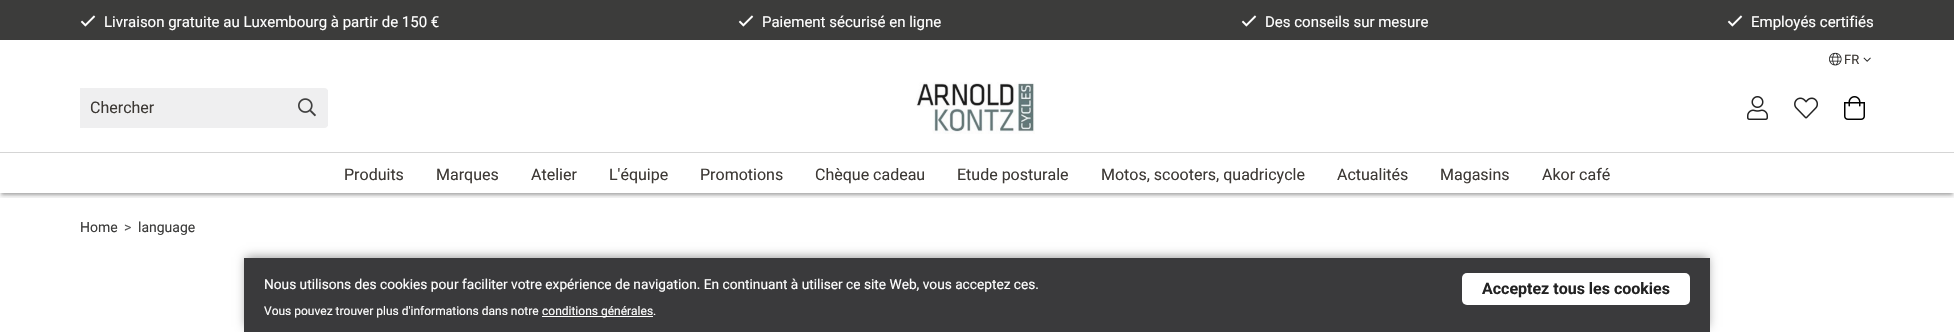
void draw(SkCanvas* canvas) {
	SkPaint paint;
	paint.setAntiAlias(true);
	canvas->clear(0xffffffff);
	canvas->save();
	canvas->clipRect(SkRect::MakeXYWH(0, 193, 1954, 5));
	paint.setColor(0x1f000000);
	paint.setMaskFilter(SkMaskFilter::MakeBlur(kNormal_SkBlurStyle, 4));
	canvas->drawRect(SkRect::MakeXYWH(0, 1, 1954, 193), paint);
	paint.setMaskFilter(nullptr);
	paint.setColor(0x24000000);
	paint.setMaskFilter(SkMaskFilter::MakeBlur(kNormal_SkBlurStyle, 2));
	canvas->drawRect(SkRect::MakeXYWH(0, 3, 1954, 193), paint);
	paint.setMaskFilter(nullptr);
	canvas->restore();
	canvas->save();
	canvas->clipRect(SkRect::MakeXYWH(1, 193, 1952, 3));
	paint.setColor(0x33000000);
	paint.setMaskFilter(SkMaskFilter::MakeBlur(kNormal_SkBlurStyle, 1.5));
	canvas->drawRect(SkRect::MakeXYWH(2, 5, 1950, 189), paint);
	paint.setMaskFilter(nullptr);
	canvas->restore();
	paint.setColor(0xff3c3c3b);
	canvas->drawRect(SkRect::MakeXYWH(0, 0, 1954, 40), paint);
	canvas->drawImageRect(SkImages::DeferredFromEncodedData(SkData::MakeFromFileName("img1.png")), SkRect::MakeXYWH(80, 15, 16, 12), SkSamplingOptions());
	SkFont f1(fontMgr->matchFamilyStyle("Roboto", SkFontStyle::Normal()), 15);
	f1.setSubpixel(true);
	paint.setColor(0xffffffff);
	canvas->drawString("Livraison gratuite au Luxembourg à partir de 150 €", 104, 27, f1, paint);
	canvas->drawImageRect(SkImages::DeferredFromEncodedData(SkData::MakeFromFileName("img1.png")), SkRect::MakeXYWH(738, 15, 16, 12), SkSamplingOptions());
	canvas->drawString("Paiement sécurisé en ligne", 762, 27, f1, paint);
	canvas->drawImageRect(SkImages::DeferredFromEncodedData(SkData::MakeFromFileName("img1.png")), SkRect::MakeXYWH(1241, 15, 16, 12), SkSamplingOptions());
	canvas->drawString("Des conseils sur mesure", 1265, 27, f1, paint);
	canvas->drawImageRect(SkImages::DeferredFromEncodedData(SkData::MakeFromFileName("img1.png")), SkRect::MakeXYWH(1727, 15, 16, 12), SkSamplingOptions());
	canvas->drawString("Employés certifiés", 1751, 27, f1, paint);
	canvas->drawImageRect(SkImages::DeferredFromEncodedData(SkData::MakeFromFileName("img2.png")), SkRect::MakeXYWH(1829, 52, 13, 14), SkSamplingOptions());
	SkFont f2(fontMgr->matchFamilyStyle("Roboto", SkFontStyle::Normal()), 13);
	f2.setSubpixel(true);
	paint.setColor(0xff3d3935);
	canvas->drawString("FR", 1844, 64, f2, paint);
	canvas->drawImageRect(SkImages::DeferredFromEncodedData(SkData::MakeFromFileName("img3.png")), SkRect::MakeXYWH(1863, 57, 8, 5), SkSamplingOptions());
	paint.setColor(0xffd5d5d5);
	canvas->drawRect(SkRect::MakeXYWH(0, 152, 1954, 1), paint);
	paint.setColor(0xffefeff0);
	canvas->drawRoundRect(SkRect::MakeXYWH(80, 88, 248, 40), 4, 4, paint);
	canvas->drawRect(SkRect::MakeXYWH(80, 88, 3, 40), paint);
	SkFont f3(fontMgr->matchFamilyStyle("Roboto", SkFontStyle::Normal()), 16);
	f3.setSubpixel(true);
	paint.setColor(0xff3d3935);
	canvas->drawString("Chercher", 90, 113, f3, paint);
	paint.setColor(0xffefeff0);
	canvas->drawRect(SkRect::MakeXYWH(327, 90, 1, 36), paint);
	canvas->drawImageRect(SkImages::DeferredFromEncodedData(SkData::MakeFromFileName("img4.png")), SkRect::MakeXYWH(298, 98, 18, 19), SkSamplingOptions());
	canvas->drawImageRect(SkImages::DeferredFromEncodedData(SkData::MakeFromFileName("img5.png")), SkRect::MakeXYWH(916, 82, 119, 52), SkSamplingOptions());
	canvas->drawImageRect(SkImages::DeferredFromEncodedData(SkData::MakeFromFileName("img6.png")), SkRect::MakeXYWH(1747, 96, 21, 24), SkSamplingOptions());
	canvas->drawImageRect(SkImages::DeferredFromEncodedData(SkData::MakeFromFileName("img7.png")), SkRect::MakeXYWH(1794, 97, 24, 22), SkSamplingOptions());
	canvas->drawImageRect(SkImages::DeferredFromEncodedData(SkData::MakeFromFileName("img8.png")), SkRect::MakeXYWH(1844, 96, 21, 24), SkSamplingOptions());
	paint.setColor(0xff3d3935);
	canvas->drawString("Produits", 344, 180, f3, paint);
	canvas->drawString("Marques", 436, 180, f3, paint);
	canvas->drawString("Atelier", 531, 180, f3, paint);
	canvas->drawString("L'équipe", 609, 180, f3, paint);
	canvas->drawString("Promotions", 700, 180, f3, paint);
	canvas->drawString("Chèque cadeau", 815, 180, f3, paint);
	canvas->drawString("Etude posturale", 957, 180, f3, paint);
	canvas->drawString("Motos, scooters, quadricycle", 1101, 180, f3, paint);
	canvas->drawString("Actualités", 1337, 180, f3, paint);
	canvas->drawString("Magasins", 1440, 180, f3, paint);
	canvas->drawString("Akor café", 1542, 180, f3, paint);
	SkFont f4(fontMgr->matchFamilyStyle("Roboto", SkFontStyle::Normal()), 14);
	f4.setSubpixel(true);
	paint.setColor(0xff3c3c3b);
	canvas->drawString("Home", 80, 232, f4, paint);
	paint.setColor(0xff5c5c5c);
	canvas->drawString(">", 124, 232, f4, paint);
	paint.setColor(0xff3c3c3b);
	canvas->drawString("language", 138, 232, f4, paint);
	paint.setColor(0x66000000);
	paint.setMaskFilter(SkMaskFilter::MakeBlur(kNormal_SkBlurStyle, 5));
	canvas->drawRect(SkRect::MakeXYWH(246, 257, 1462, 70), paint);
	paint.setMaskFilter(nullptr);
	paint.setColor(0xff3a3a3c);
	canvas->drawRect(SkRect::MakeXYWH(244, 258, 1466, 74), paint);
	SkFont f5(fontMgr->matchFamilyStyle("Roboto", SkFontStyle::Normal()), 13.7);
	f5.setSubpixel(true);
	paint.setColor(0xffffffff);
	canvas->drawString("Nous utilisons des cookies pour faciliter votre expérience de navigation. En continuant à utiliser ce site Web, vous acceptez ces.", 264, 289, f5, paint);
	SkFont f6(fontMgr->matchFamilyStyle("Roboto", SkFontStyle::Normal()), 12);
	f6.setSubpixel(true);
	canvas->drawString("Vous pouvez trouver plus d'informations dans notre", 264, 315, f6, paint);
	canvas->drawRect(SkRect::MakeXYWH(542, 316, 111, 1), paint);
	canvas->drawString("conditions générales.", 542, 315, f6, paint);
	canvas->drawRoundRect(SkRect::MakeXYWH(1462, 273, 228, 32), 5, 5, paint);
	SkFont f7(fontMgr->matchFamilyStyle("Roboto", SkFontStyle::Bold()), 16);
	f7.setSubpixel(true);
	paint.setColor(0xff222222);
	canvas->drawString("Acceptez tous les cookies", 1482, 294, f7, paint);
}
